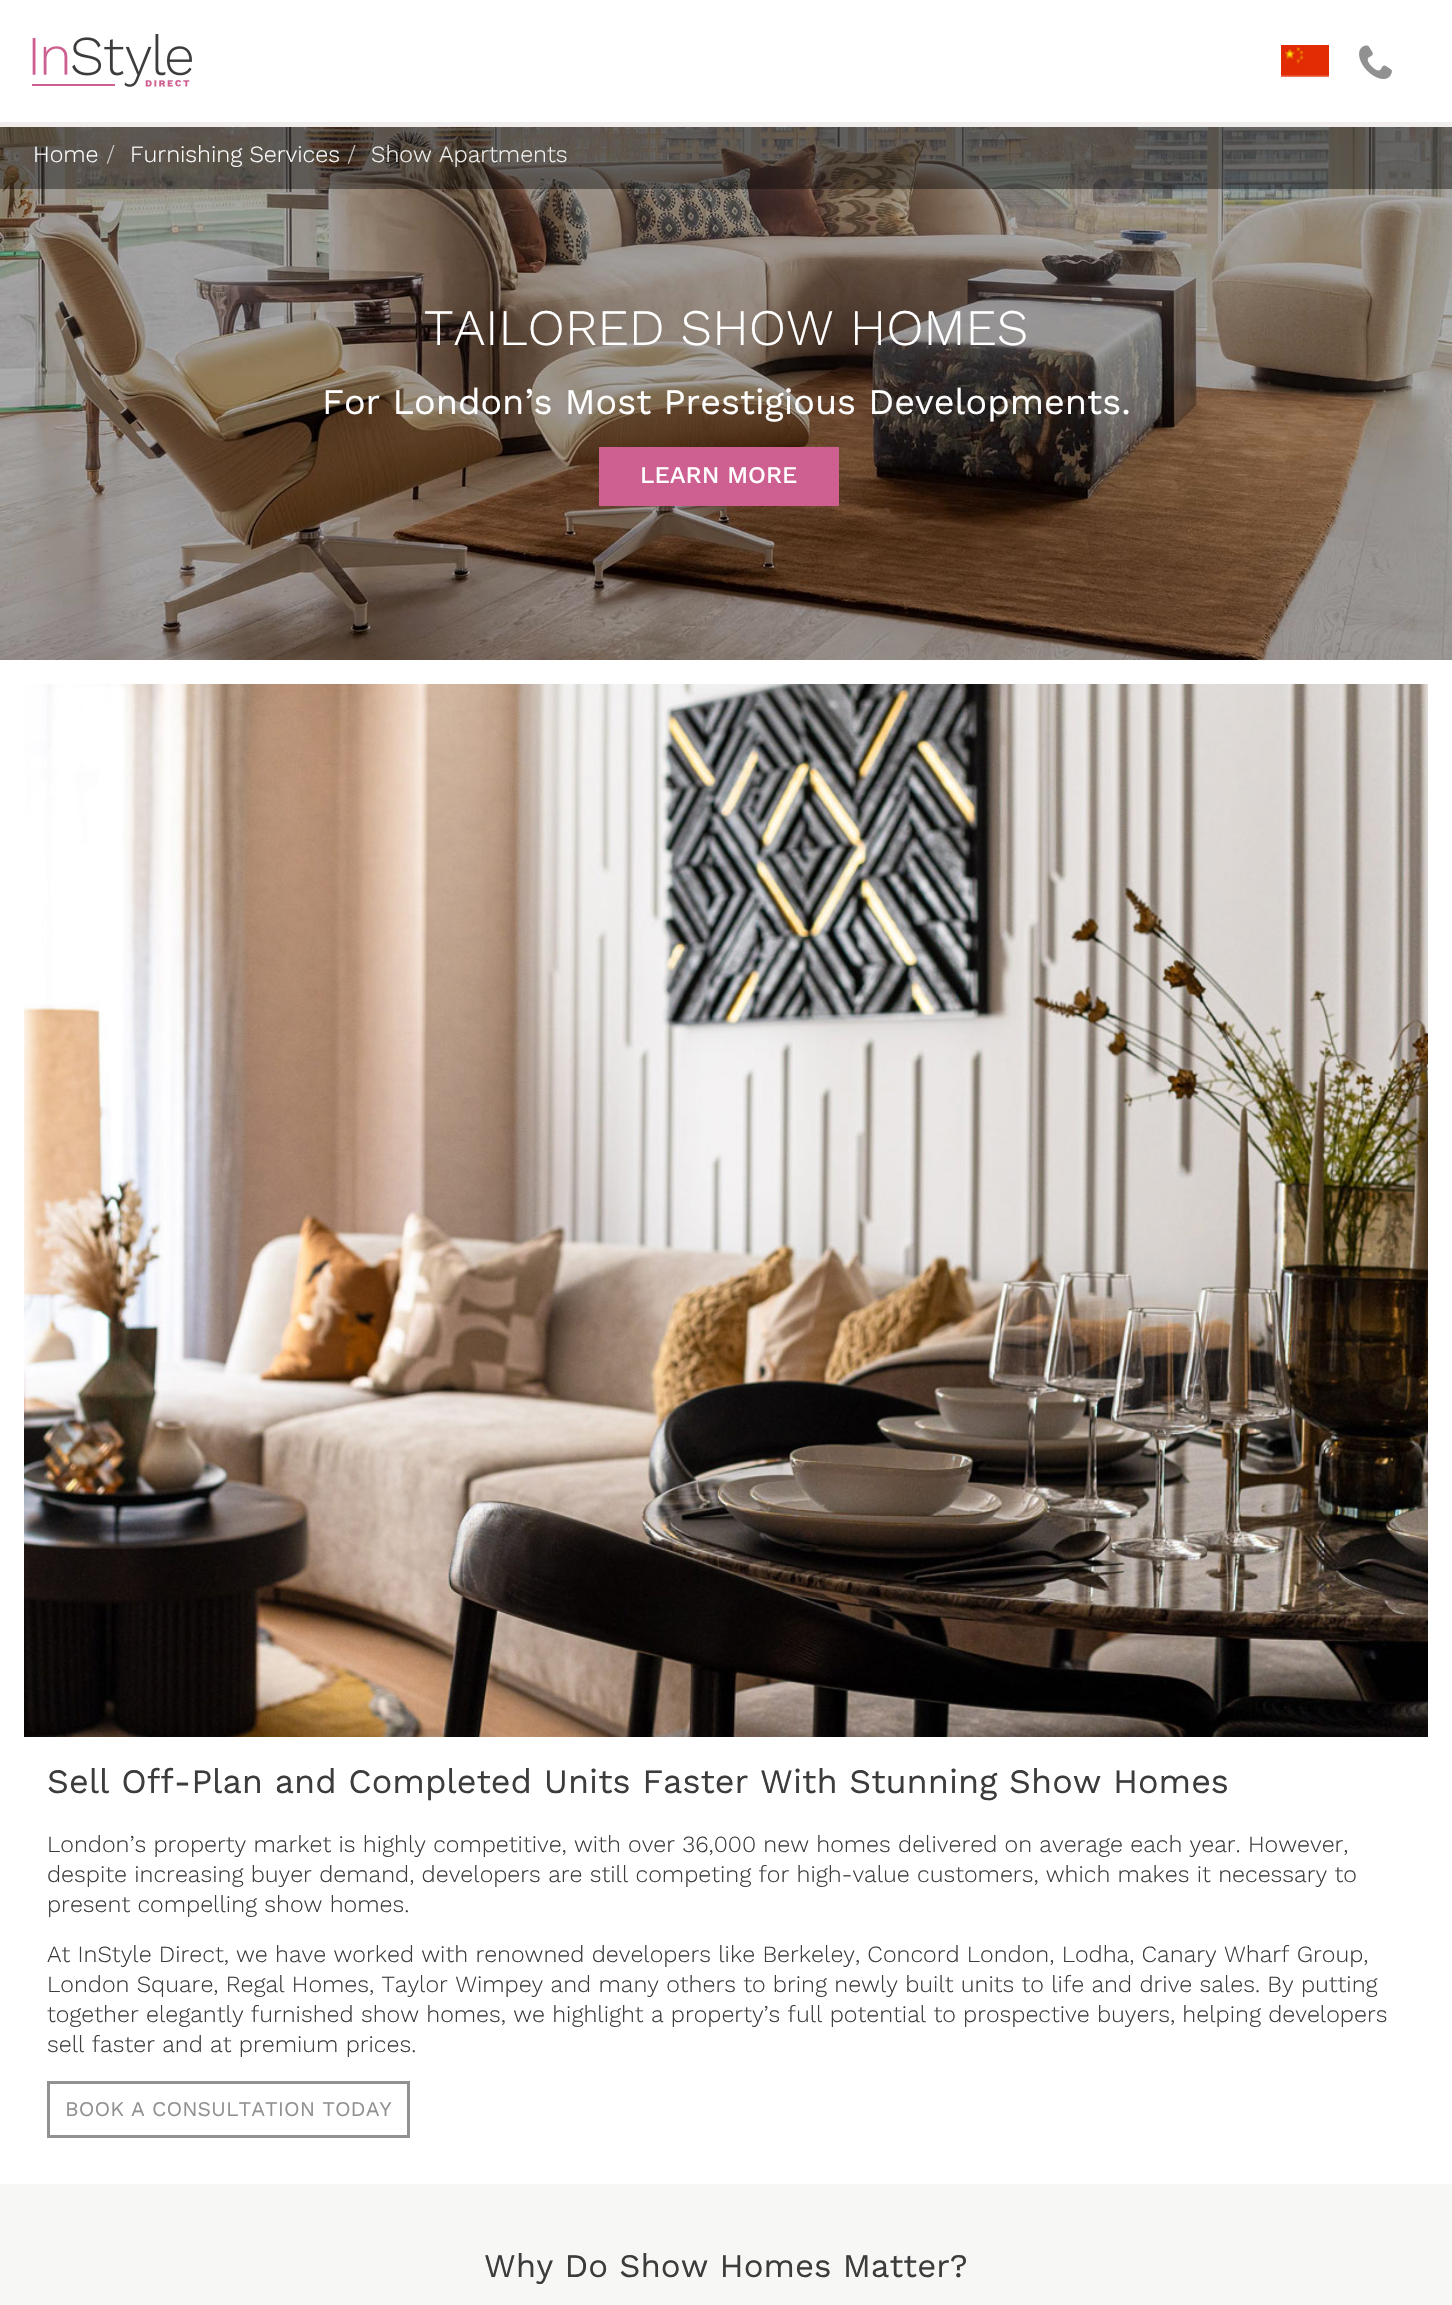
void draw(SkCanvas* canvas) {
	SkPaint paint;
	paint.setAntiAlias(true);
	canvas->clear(0xffffffff);
	paint.setColor(0xfff0edec);
	canvas->drawRect(SkRect::MakeXYWH(0, 122, 1452, 5), paint);
	canvas->drawImageRect(SkImages::DeferredFromEncodedData(SkData::MakeFromFileName("img1.png")), SkRect::MakeXYWH(32, 34, 160, 53), SkSamplingOptions());
	canvas->drawImageRect(SkImages::DeferredFromEncodedData(SkData::MakeFromFileName("img2.png")), SkRect::MakeXYWH(1281, 45, 48, 32), SkSamplingOptions());
	canvas->drawImageRect(SkImages::DeferredFromEncodedData(SkData::MakeFromFileName("img3.png")), SkRect::MakeXYWH(1359, 45, 33, 34), SkSamplingOptions());
	canvas->drawImageRect(SkImages::DeferredFromEncodedData(SkData::MakeFromFileName("img4.png")), SkRect::MakeXYWH(0, 127, 1452, 533), SkSamplingOptions());
	paint.setColor(0x66000000);
	canvas->drawRect(SkRect::MakeXYWH(0, 127, 1452, 62), paint);
	SkFont f1(fontMgr->matchFamilyStyle("Work Sans", SkFontStyle(300, SkFontStyle::kNormal_Width, SkFontStyle::kUpright_Slant)), 23.25);
	f1.setSubpixel(true);
	paint.setColor(0xffffffff);
	canvas->drawString("Home", 33, 162, f1, paint);
	paint.setColor(0xffcccccc);
	canvas->drawString("/", 106, 162, f1, paint);
	paint.setColor(0xffffffff);
	canvas->drawString("Furnishing Services", 130, 162, f1, paint);
	paint.setColor(0xffcccccc);
	canvas->drawString("/", 347, 162, f1, paint);
	paint.setColor(0xfff2f2f2);
	canvas->drawString("Show Apartments", 371, 162, f1, paint);
	SkFont f2(fontMgr->matchFamilyStyle("Work Sans", SkFontStyle(300, SkFontStyle::kNormal_Width, SkFontStyle::kUpright_Slant)), 51);
	f2.setSubpixel(true);
	paint.setColor(0xffffffff);
	canvas->drawString("TAILORED SHOW HOMES", 424, 345, f2, paint);
	SkFont f3(fontMgr->matchFamilyStyle("Work Sans", SkFontStyle::Normal()), 36);
	f3.setSubpixel(true);
	canvas->drawString("For London’s Most Prestigious Developments.", 322, 414, f3, paint);
	paint.setColor(0xffcd5f91);
	canvas->drawRect(SkRect::MakeXYWH(599, 447, 240, 59), paint);
	SkFont f4(fontMgr->matchFamilyStyle("Work Sans", SkFontStyle(500, SkFontStyle::kNormal_Width, SkFontStyle::kUpright_Slant)), 24);
	f4.setSubpixel(true);
	paint.setColor(0xffffffff);
	canvas->drawString("LEARN MORE", 640, 483, f4, paint);
	canvas->drawImageRect(SkImages::DeferredFromEncodedData(SkData::MakeFromFileName("img5.png")), SkRect::MakeXYWH(24, 684, 1404, 1053), SkSamplingOptions());
	SkFont f5(fontMgr->matchFamilyStyle("Work Sans", SkFontStyle::Normal()), 34.2);
	f5.setSubpixel(true);
	paint.setColor(0xff3c3c3c);
	canvas->drawString("Sell Off-Plan and Completed Units Faster With Stunning Show Homes", 47, 1793, f5, paint);
	canvas->drawString("London’s property market is highly competitive, with over 36,000 new homes delivered on average each year. However,", 47, 1852, f1, paint);
	canvas->drawString("despite increasing buyer demand, developers are still competing for high-value customers, which makes it necessary to", 47, 1882, f1, paint);
	canvas->drawString("present compelling show homes.", 47, 1912, f1, paint);
	canvas->drawString("At InStyle Direct, we have worked with renowned developers like Berkeley, Concord London, Lodha, Canary Wharf Group,", 47, 1962, f1, paint);
	canvas->drawString("London Square, Regal Homes, Taylor Wimpey and many others to bring newly built units to life and drive sales. By putting", 47, 1992, f1, paint);
	canvas->drawString("together elegantly furnished show homes, we highlight a property’s full potential to prospective buyers, helping developers", 47, 2022, f1, paint);
	canvas->drawString("sell faster and at premium prices.", 47, 2052, f1, paint);
	paint.setStroke(true);
	paint.setStrokeWidth(3);
	paint.setColor(0xff919191);
	canvas->drawRect(SkRect::MakeXYWH(48.5, 2082.5, 360, 54), paint);
	SkFont f6(fontMgr->matchFamilyStyle("Work Sans", SkFontStyle::Normal()), 21);
	f6.setSubpixel(true);
	paint.setStroke(false);
	canvas->drawString("BOOK A CONSULTATION TODAY", 65, 2116, f6, paint);
	paint.setColor(0xfff7f7f6);
	canvas->drawRect(SkRect::MakeXYWH(0, 2184, 1452, 121), paint);
	SkFont f7(fontMgr->matchFamilyStyle("Work Sans", SkFontStyle::Normal()), 33);
	f7.setSubpixel(true);
	paint.setColor(0xff3c3c3c);
	canvas->drawString("Why Do Show Homes Matter?", 484, 2277, f7, paint);
}
